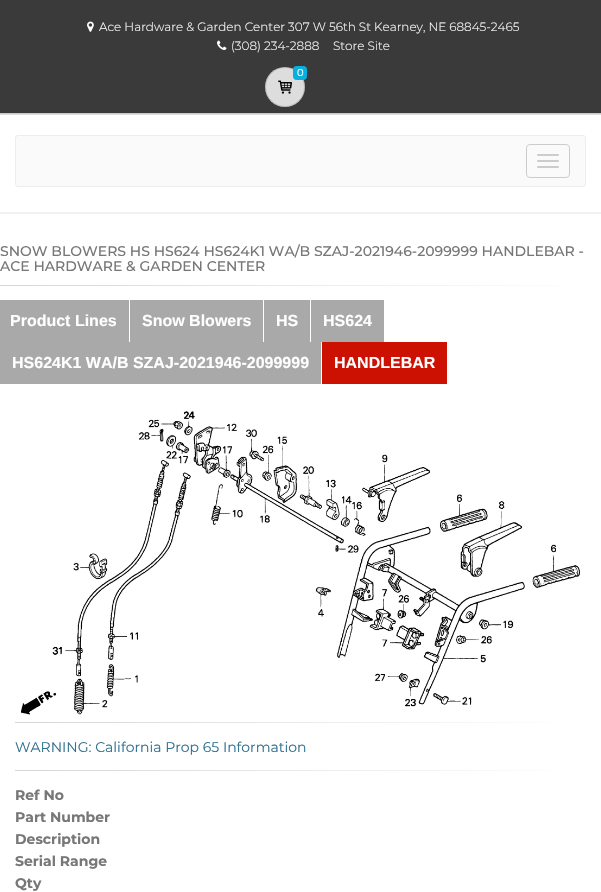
void draw(SkCanvas* canvas) {
	SkPaint paint;
	paint.setAntiAlias(true);
	canvas->clear(0xffffffff);
	paint.setColor(0xff3a3a3a);
	canvas->drawRect(SkRect::MakeXYWH(0, 0, 601, 113), paint);
	paint.setColor(0xffbbc9e3);
	canvas->drawRect(SkRect::MakeXYWH(0, 113, 601, 1), paint);
	canvas->drawImageRect(SkImages::DeferredFromEncodedData(SkData::MakeFromFileName("img1.png")), SkRect::MakeXYWH(87, 21, 7, 11), SkSamplingOptions());
	SkFont f1(fontMgr->matchFamilyStyle("Montserrat", SkFontStyle(300, SkFontStyle::kNormal_Width, SkFontStyle::kUpright_Slant)), 12);
	f1.setSubpixel(true);
	paint.setColor(0xffffffff);
	canvas->drawString("Ace Hardware & Garden Center 307 W 56th St Kearney, NE 68845-2465", 99, 31, f1, paint);
	canvas->drawImageRect(SkImages::DeferredFromEncodedData(SkData::MakeFromFileName("img2.png")), SkRect::MakeXYWH(217, 40, 10, 10), SkSamplingOptions());
	canvas->drawString("(308) 234-2888", 231, 50, f1, paint);
	canvas->drawString("Store Site", 333, 50, f1, paint);
	paint.setColor(0xffdddddd);
	canvas->drawCircle(285, 87, 20, paint);
	paint.setStroke(true);
	paint.setStrokeWidth(1);
	paint.setColor(0x26000000);
	canvas->drawCircle(285, 87, 19.5, paint);
	paint.setStroke(false);
	paint.setColor(0xff09afdf);
	canvas->drawRoundRect(SkRect::MakeXYWH(293, 66, 14, 14), 4, 4, paint);
	SkFont f2(fontMgr->matchFamilyStyle("Montserrat", SkFontStyle::Normal()), 10);
	f2.setSubpixel(true);
	paint.setColor(0xffffffff);
	canvas->drawString("0", 297, 76, f2, paint);
	canvas->drawImageRect(SkImages::DeferredFromEncodedData(SkData::MakeFromFileName("img3.png")), SkRect::MakeXYWH(278, 80, 14, 14), SkSamplingOptions());
	paint.setColor(0xffdddddd);
	canvas->drawRect(SkRect::MakeXYWH(0, 114, 601, 1), paint);
	paint.setColor(0xfff1f1f1);
	canvas->drawRect(SkRect::MakeXYWH(0, 212, 601, 2), paint);
	paint.setColor(0xfffafafa);
	canvas->drawRoundRect(SkRect::MakeXYWH(15.5, 135.5, 570, 51), 2.5, 2.5, paint);
	paint.setStroke(true);
	paint.setColor(0xffededed);
	canvas->drawRoundRect(SkRect::MakeXYWH(15.5, 135.5, 570, 51), 2.5, 2.5, paint);
	paint.setColor(0xffcccccc);
	canvas->drawRoundRect(SkRect::MakeXYWH(526.5, 144.5, 43, 33), 3.5, 3.5, paint);
	paint.setStroke(false);
	canvas->drawRoundRect(SkRect::MakeXYWH(537, 154, 22, 2), 1, 1, paint);
	canvas->drawRoundRect(SkRect::MakeXYWH(537, 160, 22, 2), 1, 1, paint);
	canvas->drawRoundRect(SkRect::MakeXYWH(537, 166, 22, 2), 1, 1, paint);
	SkFont f3(fontMgr->matchFamilyStyle("Montserrat", SkFontStyle(500, SkFontStyle::kNormal_Width, SkFontStyle::kUpright_Slant)), 14);
	f3.setSubpixel(true);
	paint.setColor(0xff777777);
	canvas->drawString("SNOW BLOWERS HS HS624 HS624K1 WA/B SZAJ-2021946-2099999 HANDLEBAR -", 0, 256, f3, paint);
	canvas->drawString("ACE HARDWARE & GARDEN CENTER", 0, 271, f3, paint);
	{
		const SkColor colors[] = {0xffd6d6d6, 0xffffffff};
		const float stops[] = {0, 1};
		const SkPoint ends[] = {{0, 286}, {601, 286}};
		paint.setShader(SkGradientShader::MakeLinear(ends, colors, stops, 2, SkTileMode::kClamp));
		paint.setAlpha(255);
	}
	canvas->drawRect(SkRect::MakeXYWH(0, 285, 564, 1), paint);
	paint.setShader(nullptr);
	paint.setColor(0xffa9a9a9);
	canvas->drawRect(SkRect::MakeXYWH(0, 300, 129, 42), paint);
	SkFont f4(fontMgr->matchFamilyStyle("Liberation Sans", SkFontStyle::Bold()), 16);
	f4.setSubpixel(true);
	paint.setColor(0xffffffff);
	canvas->drawString("Product Lines", 10, 326, f4, paint);
	paint.setColor(0xffa9a9a9);
	canvas->drawRect(SkRect::MakeXYWH(130, 300, 133, 42), paint);
	paint.setColor(0xffffffff);
	canvas->drawString("Snow Blowers", 142, 326, f4, paint);
	paint.setColor(0xffa9a9a9);
	canvas->drawRect(SkRect::MakeXYWH(264, 300, 46, 42), paint);
	paint.setColor(0xffffffff);
	canvas->drawString("HS", 276, 326, f4, paint);
	paint.setColor(0xffa9a9a9);
	canvas->drawRect(SkRect::MakeXYWH(311, 300, 73, 42), paint);
	paint.setColor(0xffffffff);
	canvas->drawString("HS624", 323, 326, f4, paint);
	paint.setColor(0xffa9a9a9);
	canvas->drawRect(SkRect::MakeXYWH(0, 342, 321, 42), paint);
	paint.setColor(0xffffffff);
	canvas->drawString("HS624K1 WA/B SZAJ-2021946-2099999", 12, 368, f4, paint);
	paint.setColor(0xffcc1001);
	canvas->drawRect(SkRect::MakeXYWH(322, 342, 125, 42), paint);
	paint.setColor(0xffffffff);
	canvas->drawString("HANDLEBAR", 334, 368, f4, paint);
	canvas->drawImageRect(SkImages::DeferredFromEncodedData(SkData::MakeFromFileName("img4.png")), SkRect::MakeXYWH(21, 411, 559, 304), SkSamplingOptions());
	{
		const SkColor colors[] = {0xffd6d6d6, 0xffffffff};
		const float stops[] = {0, 1};
		const SkPoint ends[] = {{15, 723}, {586, 723}};
		paint.setShader(SkGradientShader::MakeLinear(ends, colors, stops, 2, SkTileMode::kClamp));
		paint.setAlpha(255);
	}
	canvas->drawRect(SkRect::MakeXYWH(15, 722, 536, 1), paint);
	SkFont f5(fontMgr->matchFamilyStyle("Montserrat", SkFontStyle::Normal()), 14);
	f5.setSubpixel(true);
	paint.setShader(nullptr);
	paint.setColor(0xff31708f);
	canvas->drawString("WARNING: California Prop 65 Information", 15, 752, f5, paint);
	{
		const SkColor colors[] = {0xffd6d6d6, 0xffffffff};
		const float stops[] = {0, 1};
		const SkPoint ends[] = {{15, 771}, {586, 771}};
		paint.setShader(SkGradientShader::MakeLinear(ends, colors, stops, 2, SkTileMode::kClamp));
		paint.setAlpha(255);
	}
	canvas->drawRect(SkRect::MakeXYWH(15, 770, 536, 1), paint);
	SkFont f6(fontMgr->matchFamilyStyle("Montserrat", SkFontStyle::Bold()), 14);
	f6.setSubpixel(true);
	paint.setShader(nullptr);
	paint.setColor(0xff777777);
	canvas->drawString("Ref No", 15, 800, f6, paint);
	canvas->drawString("Part Number", 15, 822, f6, paint);
	canvas->drawString("Description", 15, 844, f6, paint);
	canvas->drawString("Serial Range", 15, 866, f6, paint);
	canvas->drawString("Qty", 15, 888, f6, paint);
}
